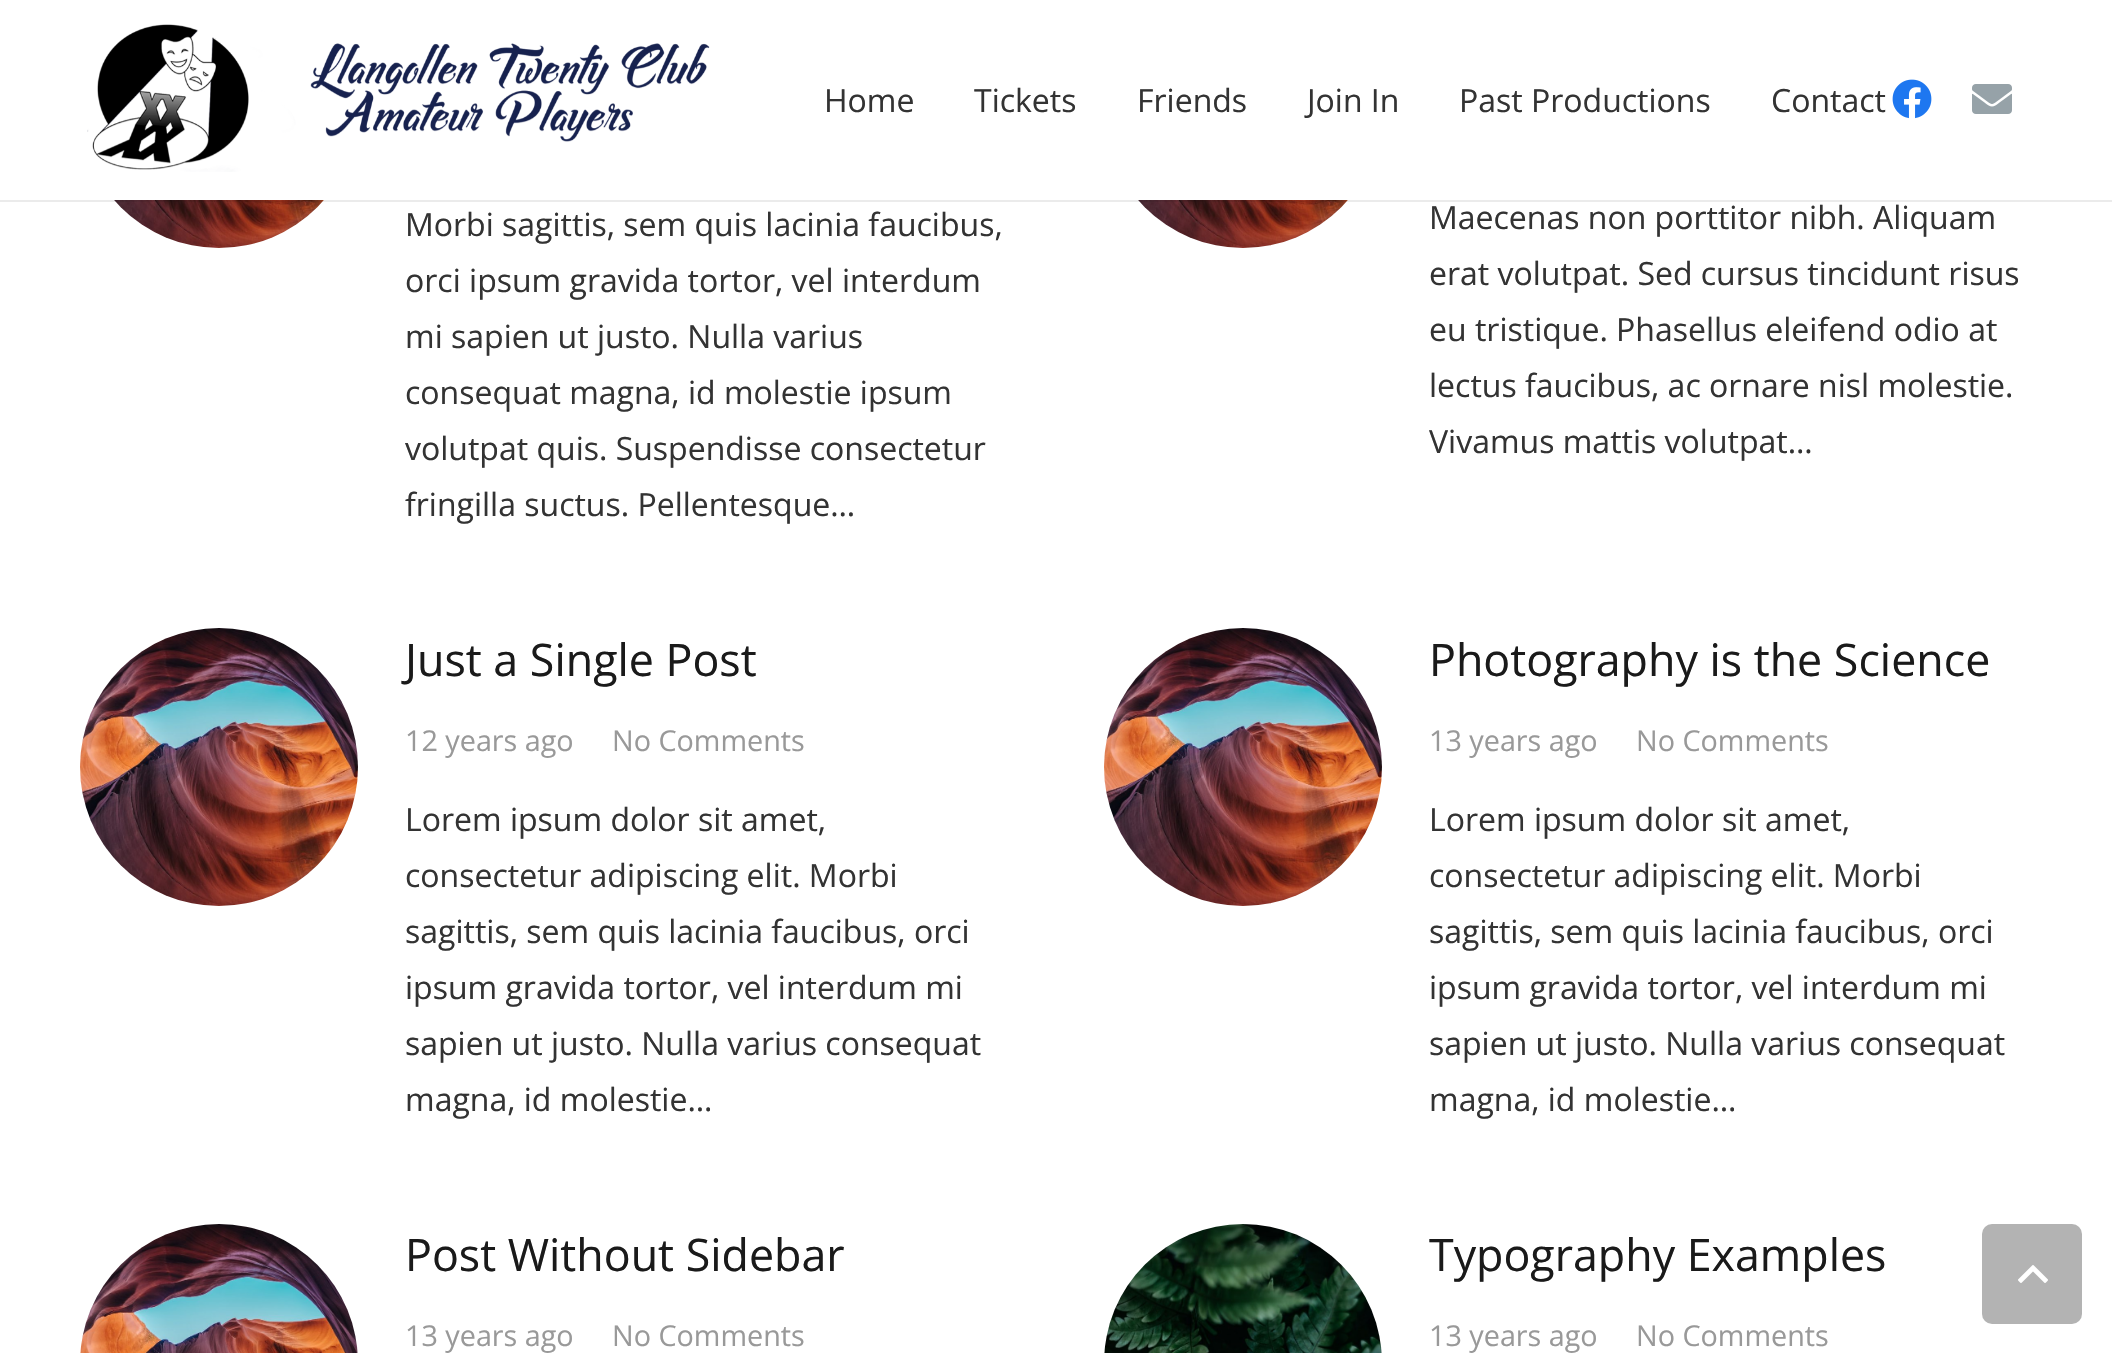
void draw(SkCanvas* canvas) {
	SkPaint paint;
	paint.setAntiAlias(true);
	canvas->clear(0xffffffff);
	canvas->drawImageRect(SkImages::DeferredFromEncodedData(SkData::MakeFromFileName("img4.png")), SkRect::MakeXYWH(114, 200, 210, 48), SkSamplingOptions());
	canvas->drawImageRect(SkImages::DeferredFromEncodedData(SkData::MakeFromFileName("img5.png")), SkRect::MakeXYWH(1138, 200, 210, 48), SkSamplingOptions());
	paint.setColor(0x14000000);
	canvas->drawRect(SkRect::MakeXYWH(0, 200, 2112, 2), paint);
	canvas->drawImageRect(SkImages::DeferredFromEncodedData(SkData::MakeFromFileName("img1.png")), SkRect::MakeXYWH(87, 24, 623, 148), SkSamplingOptions());
	SkFont f1(fontMgr->matchFamilyStyle("Open Sans", SkFontStyle::Normal()), 32);
	f1.setSubpixel(true);
	paint.setColor(0xff333333);
	canvas->drawString("Home", 824, 112, f1, paint);
	canvas->drawString("Tickets", 974, 112, f1, paint);
	canvas->drawString("Friends", 1137, 112, f1, paint);
	canvas->drawString("Join In", 1307, 112, f1, paint);
	canvas->drawString("Past Productions", 1459, 112, f1, paint);
	canvas->drawString("Contact", 1771, 112, f1, paint);
	canvas->drawImageRect(SkImages::DeferredFromEncodedData(SkData::MakeFromFileName("img2.png")), SkRect::MakeXYWH(1892, 79, 40, 40), SkSamplingOptions());
	canvas->drawImageRect(SkImages::DeferredFromEncodedData(SkData::MakeFromFileName("img3.png")), SkRect::MakeXYWH(1972, 84, 40, 30), SkSamplingOptions());
	canvas->drawString("Morbi sagittis, sem quis lacinia faucibus,", 405, 236, f1, paint);
	canvas->drawString("orci ipsum gravida tortor, vel interdum", 405, 292, f1, paint);
	canvas->drawString("mi sapien ut justo. Nulla varius", 405, 348, f1, paint);
	canvas->drawString("consequat magna, id molestie ipsum", 405, 404, f1, paint);
	canvas->drawString("volutpat quis. Suspendisse consectetur", 405, 460, f1, paint);
	canvas->drawString("fringilla suctus. Pellentesque…", 405, 516, f1, paint);
	canvas->drawString("Maecenas non porttitor nibh. Aliquam", 1429, 229, f1, paint);
	canvas->drawString("erat volutpat. Sed cursus tincidunt risus", 1429, 285, f1, paint);
	canvas->drawString("eu tristique. Phasellus eleifend odio at", 1429, 341, f1, paint);
	canvas->drawString("lectus faucibus, ac ornare nisl molestie.", 1429, 397, f1, paint);
	canvas->drawString("Vivamus mattis volutpat…", 1429, 453, f1, paint);
	canvas->drawImageRect(SkImages::DeferredFromEncodedData(SkData::MakeFromFileName("img6.png")), SkRect::MakeXYWH(80, 628, 278, 278), SkSamplingOptions());
	SkFont f2(fontMgr->matchFamilyStyle("Open Sans", SkFontStyle::Normal()), 44.75);
	f2.setSubpixel(true);
	paint.setColor(0xff1a1a1a);
	canvas->drawString("Just a Single Post", 405, 676, f2, paint);
	SkFont f3(fontMgr->matchFamilyStyle("Open Sans", SkFontStyle::Normal()), 28.75);
	f3.setSubpixel(true);
	paint.setColor(0xff999999);
	canvas->drawString("12 years ago", 405, 751, f3, paint);
	canvas->drawString("No Comments", 612, 751, f3, paint);
	paint.setColor(0xff333333);
	canvas->drawString("Lorem ipsum dolor sit amet,", 405, 831, f1, paint);
	canvas->drawString("consectetur adipiscing elit. Morbi", 405, 887, f1, paint);
	canvas->drawString("sagittis, sem quis lacinia faucibus, orci", 405, 943, f1, paint);
	canvas->drawString("ipsum gravida tortor, vel interdum mi", 405, 999, f1, paint);
	canvas->drawString("sapien ut justo. Nulla varius consequat", 405, 1055, f1, paint);
	canvas->drawString("magna, id molestie…", 405, 1111, f1, paint);
	canvas->drawImageRect(SkImages::DeferredFromEncodedData(SkData::MakeFromFileName("img7.png")), SkRect::MakeXYWH(1104, 628, 278, 278), SkSamplingOptions());
	paint.setColor(0xff1a1a1a);
	canvas->drawString("Photography is the Science", 1429, 676, f2, paint);
	paint.setColor(0xff999999);
	canvas->drawString("13 years ago", 1429, 751, f3, paint);
	canvas->drawString("No Comments", 1636, 751, f3, paint);
	paint.setColor(0xff333333);
	canvas->drawString("Lorem ipsum dolor sit amet,", 1429, 831, f1, paint);
	canvas->drawString("consectetur adipiscing elit. Morbi", 1429, 887, f1, paint);
	canvas->drawString("sagittis, sem quis lacinia faucibus, orci", 1429, 943, f1, paint);
	canvas->drawString("ipsum gravida tortor, vel interdum mi", 1429, 999, f1, paint);
	canvas->drawString("sapien ut justo. Nulla varius consequat", 1429, 1055, f1, paint);
	canvas->drawString("magna, id molestie…", 1429, 1111, f1, paint);
	canvas->drawImageRect(SkImages::DeferredFromEncodedData(SkData::MakeFromFileName("img8.png")), SkRect::MakeXYWH(80, 1224, 278, 129), SkSamplingOptions());
	paint.setColor(0xff1a1a1a);
	canvas->drawString("Post Without Sidebar", 405, 1271, f2, paint);
	paint.setColor(0xff999999);
	canvas->drawString("13 years ago", 405, 1346, f3, paint);
	canvas->drawString("No Comments", 612, 1346, f3, paint);
	canvas->drawImageRect(SkImages::DeferredFromEncodedData(SkData::MakeFromFileName("img9.png")), SkRect::MakeXYWH(1104, 1224, 278, 129), SkSamplingOptions());
	paint.setColor(0xff1a1a1a);
	canvas->drawString("Typography Examples", 1429, 1271, f2, paint);
	paint.setColor(0xff999999);
	canvas->drawString("13 years ago", 1429, 1346, f3, paint);
	canvas->drawString("No Comments", 1636, 1346, f3, paint);
	paint.setColor(0xffb3b3b3);
	canvas->drawRoundRect(SkRect::MakeXYWH(1982, 1224, 100, 100), 10, 10, paint);
	canvas->drawImageRect(SkImages::DeferredFromEncodedData(SkData::MakeFromFileName("img10.png")), SkRect::MakeXYWH(2018, 1265, 30, 18), SkSamplingOptions());
}
